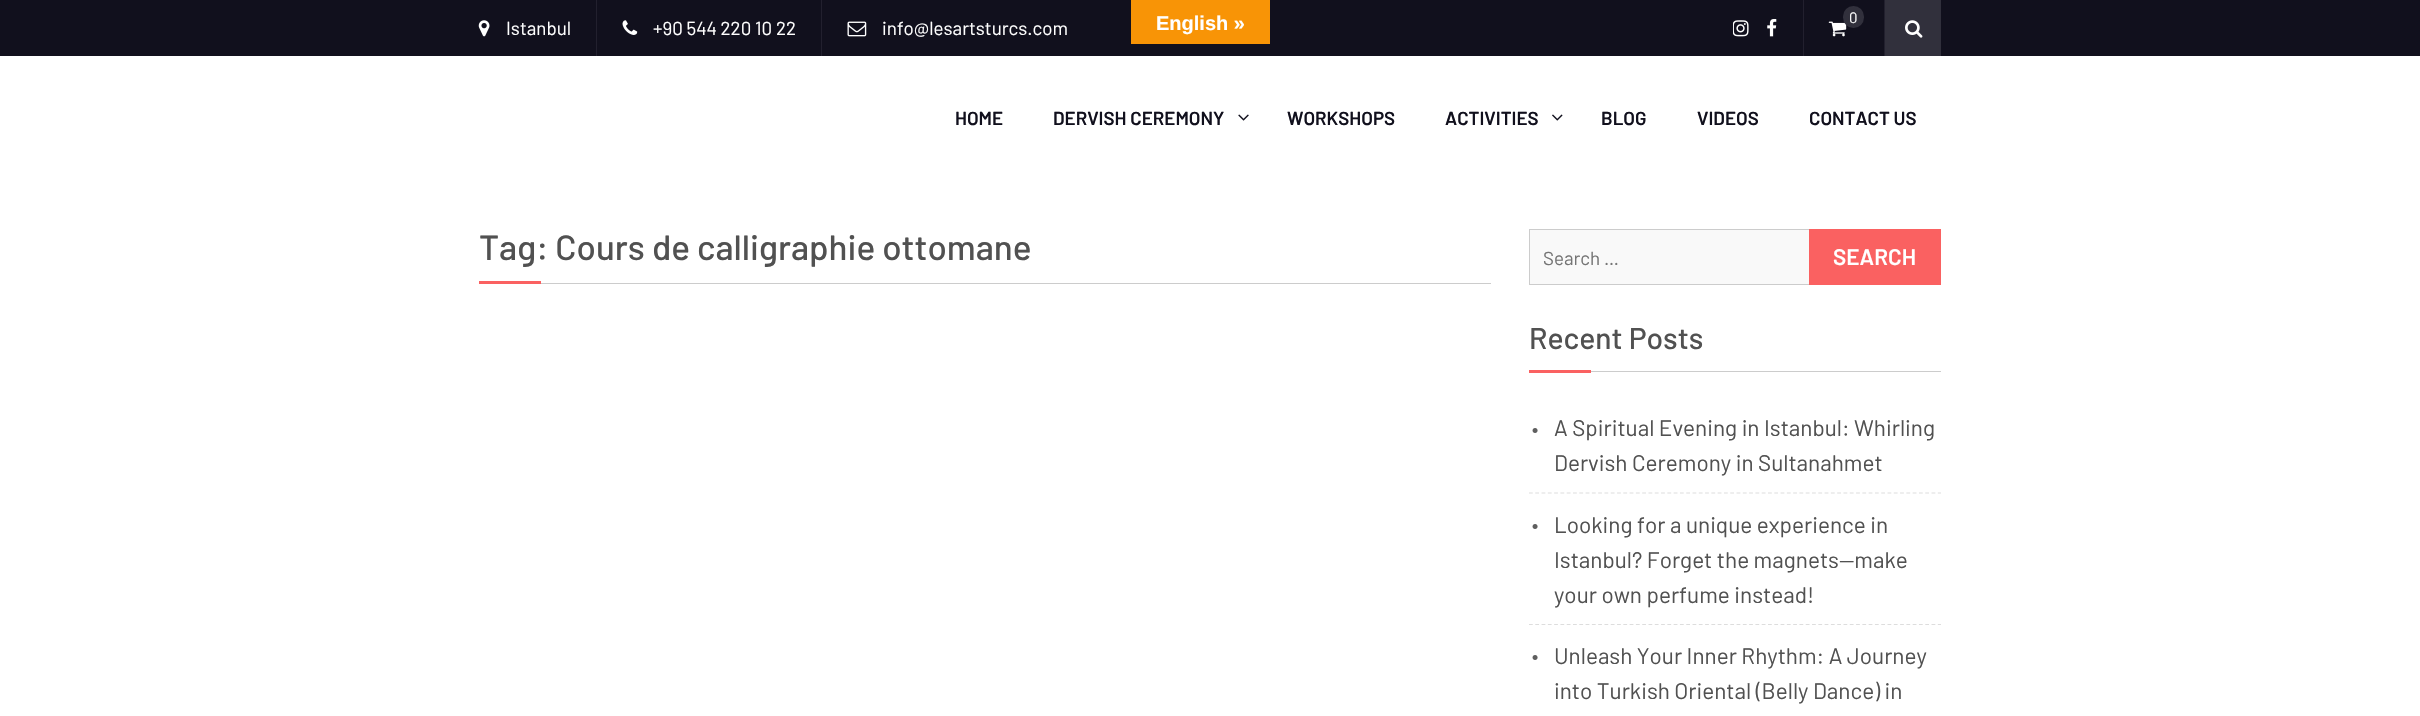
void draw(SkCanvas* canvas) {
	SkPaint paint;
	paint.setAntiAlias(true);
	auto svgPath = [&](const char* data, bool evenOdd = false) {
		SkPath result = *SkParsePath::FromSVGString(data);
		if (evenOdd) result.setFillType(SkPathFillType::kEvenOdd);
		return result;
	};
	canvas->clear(0xffffffff);
	paint.setColor(0xff11101d);
	canvas->drawRect(SkRect::MakeXYWH(0, 0, 2420, 56), paint);
	paint.setColor(0xff22202e);
	canvas->drawRect(SkRect::MakeXYWH(1803, 0, 1, 56), paint);
	canvas->drawImageRect(SkImages::DeferredFromEncodedData(SkData::MakeFromFileName("img1.png")), SkRect::MakeXYWH(1733, 20, 16, 17), SkSamplingOptions());
	canvas->drawImageRect(SkImages::DeferredFromEncodedData(SkData::MakeFromFileName("img2.png")), SkRect::MakeXYWH(1767, 19, 10, 18), SkSamplingOptions());
	canvas->drawRect(SkRect::MakeXYWH(1884, 0, 1, 56), paint);
	canvas->drawImageRect(SkImages::DeferredFromEncodedData(SkData::MakeFromFileName("img3.png")), SkRect::MakeXYWH(1828, 21, 19, 16), SkSamplingOptions());
	paint.setColor(0xff31303c);
	canvas->drawRoundRect(SkRect::MakeXYWH(1843, 6, 21, 22), 10.5, 10.5, paint);
	SkFont f1(fontMgr->matchFamilyStyle("Barlow", SkFontStyle::Normal()), 15);
	f1.setSubpixel(true);
	paint.setColor(0xffffffff);
	canvas->drawString("0", 1849, 23, f1, paint);
	paint.setColor(0xff31303c);
	canvas->drawRect(SkRect::MakeXYWH(1885, 0, 56, 56), paint);
	canvas->drawImageRect(SkImages::DeferredFromEncodedData(SkData::MakeFromFileName("img4.png")), SkRect::MakeXYWH(1905, 20, 18, 18), SkSamplingOptions());
	paint.setColor(0xff22202e);
	canvas->drawRect(SkRect::MakeXYWH(596, 0, 1, 56), paint);
	canvas->drawImageRect(SkImages::DeferredFromEncodedData(SkData::MakeFromFileName("img5.png")), SkRect::MakeXYWH(478, 20, 12, 17), SkSamplingOptions());
	SkFont f2(fontMgr->matchFamilyStyle("Barlow", SkFontStyle::Normal()), 18.75);
	f2.setSubpixel(true);
	paint.setColor(0xffffffff);
	canvas->drawString("Istanbul", 506, 35, f2, paint);
	paint.setColor(0xff22202e);
	canvas->drawRect(SkRect::MakeXYWH(821, 0, 1, 56), paint);
	canvas->drawImageRect(SkImages::DeferredFromEncodedData(SkData::MakeFromFileName("img6.png")), SkRect::MakeXYWH(622, 20, 16, 15), SkSamplingOptions());
	paint.setColor(0xffffffff);
	canvas->drawString("+90 544 220 10 22", 653, 35, f2, paint);
	canvas->drawImageRect(SkImages::DeferredFromEncodedData(SkData::MakeFromFileName("img7.png")), SkRect::MakeXYWH(847, 21, 20, 16), SkSamplingOptions());
	canvas->drawString("info@lesartsturcs.com", 882, 35, f2, paint);
	SkFont f3(fontMgr->matchFamilyStyle("Barlow", SkFontStyle(600, SkFontStyle::kNormal_Width, SkFontStyle::kUpright_Slant)), 18.75);
	f3.setSubpixel(true);
	paint.setColor(0xff11101d);
	canvas->drawString("HOME", 955, 125, f3, paint);
	canvas->drawString("DERVISH CEREMONY", 1053, 125, f3, paint);
	canvas->drawImageRect(SkImages::DeferredFromEncodedData(SkData::MakeFromFileName("img8.png")), SkRect::MakeXYWH(1238, 114, 11, 7), SkSamplingOptions());
	canvas->drawString("WORKSHOPS", 1287, 125, f3, paint);
	canvas->drawString("ACTIVITIES", 1445, 125, f3, paint);
	canvas->drawImageRect(SkImages::DeferredFromEncodedData(SkData::MakeFromFileName("img9.png")), SkRect::MakeXYWH(1552, 114, 11, 7), SkSamplingOptions());
	canvas->drawString("BLOG", 1601, 125, f3, paint);
	canvas->drawString("VIDEOS", 1697, 125, f3, paint);
	canvas->drawString("CONTACT US", 1809, 125, f3, paint);
	paint.setColor(0xffcccccc);
	canvas->drawRect(SkRect::MakeXYWH(541, 283, 950, 1), paint);
	SkFont f4(fontMgr->matchFamilyStyle("Barlow", SkFontStyle(500, SkFontStyle::kNormal_Width, SkFontStyle::kUpright_Slant)), 35);
	f4.setSubpixel(true);
	paint.setColor(0xff515151);
	canvas->drawString("Tag: Cours de calligraphie ottomane", 479, 260, f4, paint);
	paint.setColor(0xfffa6161);
	canvas->drawRect(SkRect::MakeXYWH(479, 281, 62, 3), paint);
	paint.setColor(0xfff9f9f9);
	canvas->drawRect(SkRect::MakeXYWH(1530, 230, 279, 54), paint);
	paint.setStroke(true);
	paint.setStrokeWidth(1);
	paint.setColor(0xffcccccc);
	canvas->drawRect(SkRect::MakeXYWH(1529.5, 229.5, 411, 55), paint);
	paint.setStroke(false);
	paint.setColor(0xff757575);
	canvas->drawString("Search …", 1543, 265, f2, paint);
	paint.setColor(0xfffa6161);
	canvas->drawRect(SkRect::MakeXYWH(1809, 229, 132, 56), paint);
	SkFont f5(fontMgr->matchFamilyStyle("Barlow", SkFontStyle(600, SkFontStyle::kNormal_Width, SkFontStyle::kUpright_Slant)), 22.5);
	f5.setSubpixel(true);
	paint.setColor(0xffffffff);
	canvas->drawString("SEARCH", 1833, 265, f5, paint);
	paint.setColor(0xffcccccc);
	canvas->drawRect(SkRect::MakeXYWH(1591, 371, 350, 1), paint);
	SkFont f6(fontMgr->matchFamilyStyle("Barlow", SkFontStyle(500, SkFontStyle::kNormal_Width, SkFontStyle::kUpright_Slant)), 30);
	f6.setSubpixel(true);
	paint.setColor(0xff515151);
	canvas->drawString("Recent Posts", 1529, 349, f6, paint);
	paint.setColor(0xfffa6161);
	canvas->drawRect(SkRect::MakeXYWH(1529, 370, 62, 3), paint);
	paint.setStroke(true);
	paint.setStrokeWidth(1.2);
	paint.setColor(0xffdddddd);
	paint.setPathEffect(SkDashPathEffect::Make({{3.75f, 2.54f}}, 0));
	canvas->drawPath(svgPath("M1529 493H1941"), paint);
	paint.setPathEffect(nullptr);
	SkFont f7(fontMgr->matchFamilyStyle("Barlow", SkFontStyle::Normal()), 44);
	f7.setSubpixel(true);
	paint.setStroke(false);
	paint.setColor(0xff5f5f5f);
	canvas->drawString(".", 1529, 433, f7, paint);
	SkFont f8(fontMgr->matchFamilyStyle("Barlow", SkFontStyle::Normal()), 22.5);
	f8.setSubpixel(true);
	paint.setColor(0xff515151);
	canvas->drawString("A Spiritual Evening in Istanbul: Whirling", 1554, 436, f8, paint);
	canvas->drawString("Dervish Ceremony in Sultanahmet", 1554, 471, f8, paint);
	paint.setStroke(true);
	paint.setColor(0xffdddddd);
	paint.setPathEffect(SkDashPathEffect::Make({{3.75f, 2.54f}}, 0));
	canvas->drawPath(svgPath("M1529 624.5H1941"), paint);
	paint.setPathEffect(nullptr);
	paint.setStroke(false);
	paint.setColor(0xff5f5f5f);
	canvas->drawString(".", 1529, 529, f7, paint);
	paint.setColor(0xff515151);
	canvas->drawString("Looking for a unique experience in", 1554, 533, f8, paint);
	canvas->drawString("Istanbul? Forget the magnets—make", 1554, 568, f8, paint);
	canvas->drawString("your own perfume instead!", 1554, 603, f8, paint);
	paint.setColor(0xff5f5f5f);
	canvas->drawString(".", 1529, 660, f7, paint);
	paint.setColor(0xff515151);
	canvas->drawString("Unleash Your Inner Rhythm: A Journey", 1554, 664, f8, paint);
	canvas->drawString("into Turkish Oriental (Belly Dance) in", 1554, 699, f8, paint);
	paint.setColor(0xfff89406);
	canvas->drawRect(SkRect::MakeXYWH(1131, 0, 139, 44), paint);
	SkFont f9(fontMgr->matchFamilyStyle("Liberation Sans", SkFontStyle::Bold()), 20);
	f9.setSubpixel(true);
	paint.setColor(0xffffffff);
	canvas->drawString("English »", 1156, 30, f9, paint);
}
